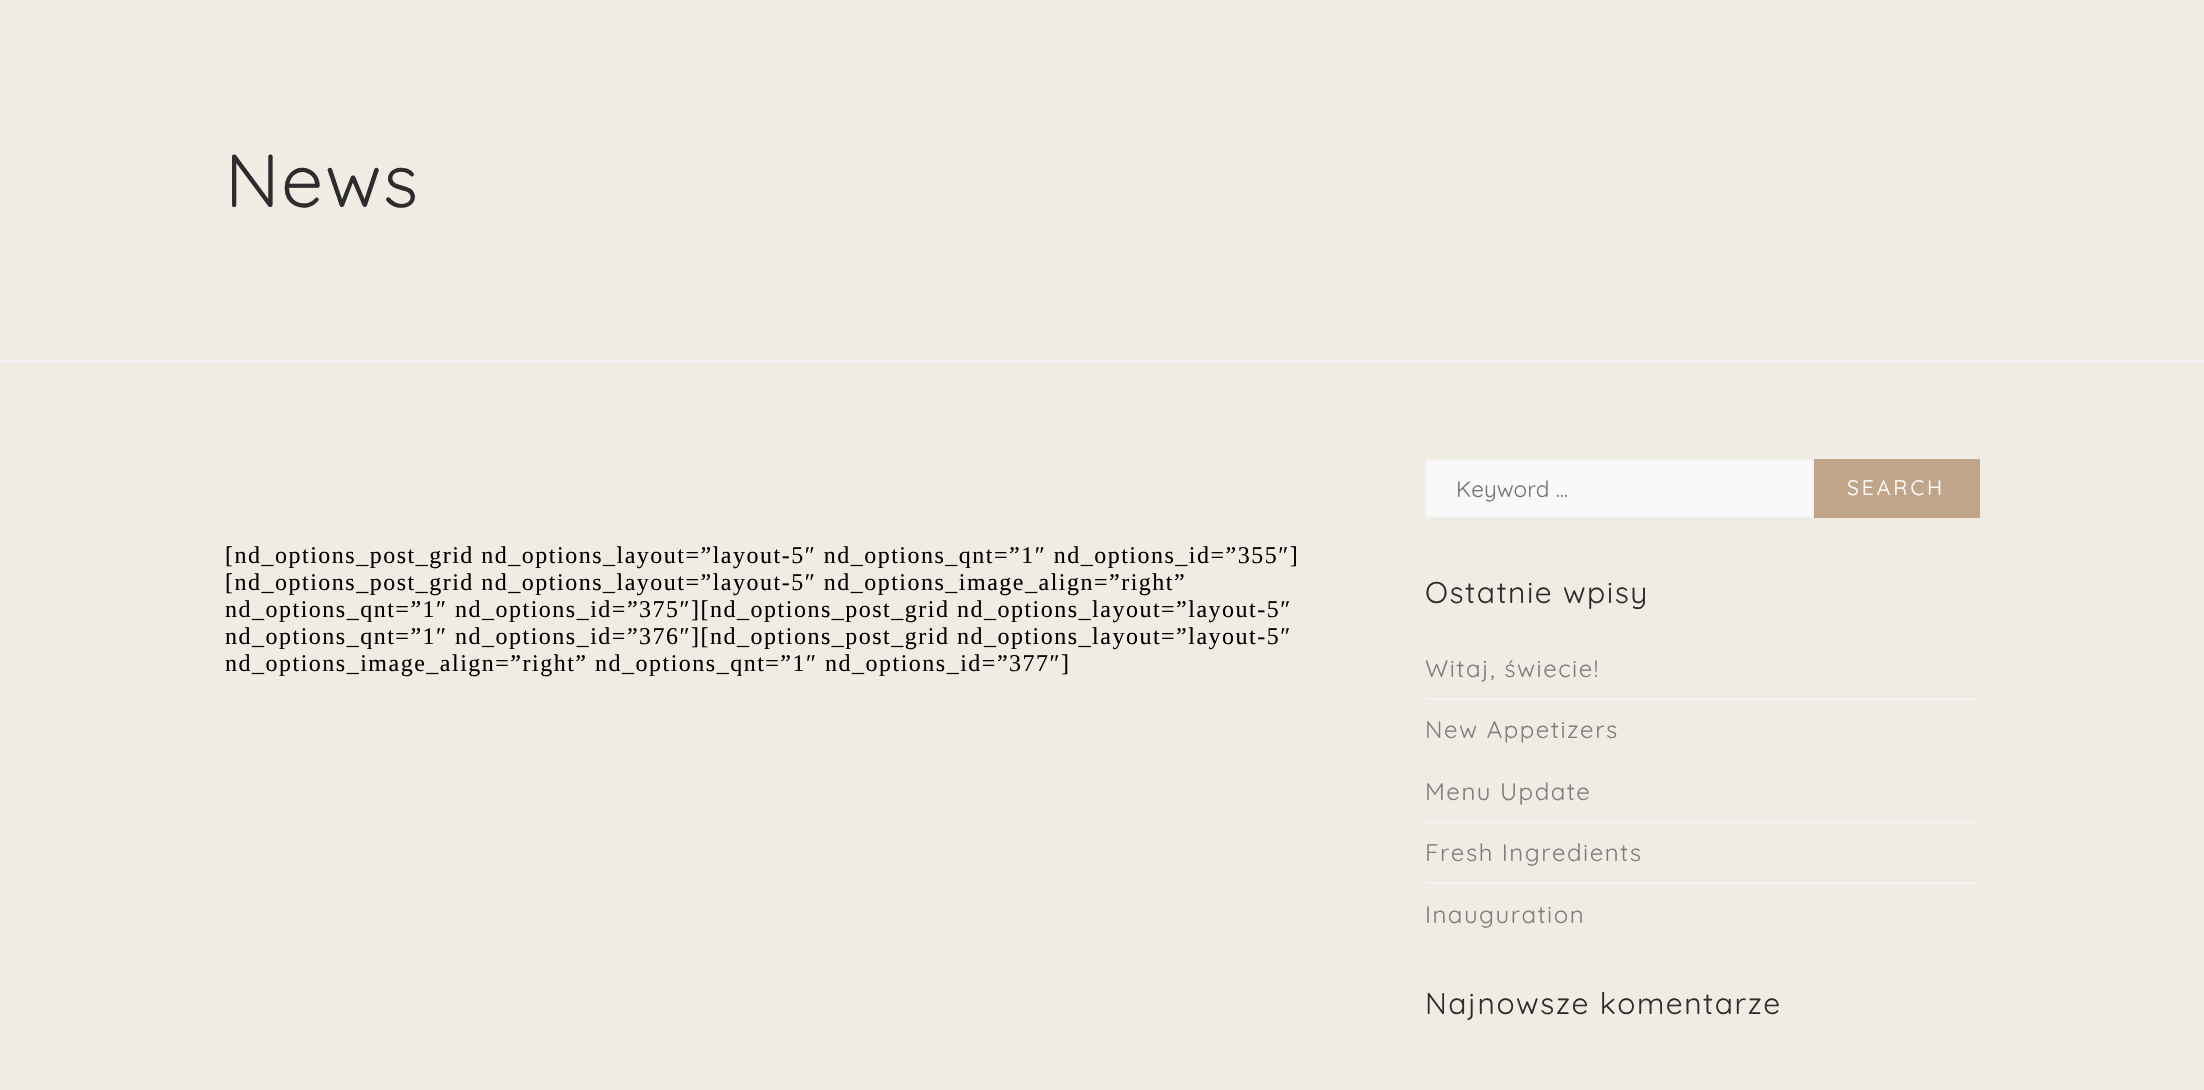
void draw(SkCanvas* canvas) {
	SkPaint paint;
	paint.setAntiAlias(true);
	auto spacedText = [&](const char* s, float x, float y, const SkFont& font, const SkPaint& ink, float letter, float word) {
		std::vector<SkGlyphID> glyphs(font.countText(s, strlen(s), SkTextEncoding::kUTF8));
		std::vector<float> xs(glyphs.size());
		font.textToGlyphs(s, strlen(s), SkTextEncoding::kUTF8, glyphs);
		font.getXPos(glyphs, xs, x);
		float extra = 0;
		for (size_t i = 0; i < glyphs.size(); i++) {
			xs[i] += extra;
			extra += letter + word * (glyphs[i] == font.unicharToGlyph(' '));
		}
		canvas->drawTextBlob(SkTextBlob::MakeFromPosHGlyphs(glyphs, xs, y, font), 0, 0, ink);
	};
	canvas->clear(0xfff0ece4);
	paint.setColor(0xfff1f1f1);
	canvas->drawRect(SkRect::MakeXYWH(0, 360, 2204, 2), paint);
	SkFont f1(fontMgr->matchFamilyStyle("Quicksand", SkFontStyle::Normal()), 75);
	f1.setSubpixel(true);
	paint.setColor(0xff2d2d2d);
	spacedText("News", 225, 207, f1, paint, 1.5, 0);
	SkFont f2(fontMgr->matchFamilyStyle("Liberation Serif", SkFontStyle::Normal()), 24);
	f2.setSubpixel(true);
	paint.setColor(0xff030303);
	spacedText("[nd_options_post_grid nd_options_layout=”layout-5″ nd_options_qnt=”1″ nd_options_id=”355″]", 225, 563, f2, paint, 1.5, 0);
	spacedText("[nd_options_post_grid nd_options_layout=”layout-5″ nd_options_image_align=”right”", 225, 590, f2, paint, 1.5, 0);
	spacedText("nd_options_qnt=”1″ nd_options_id=”375″][nd_options_post_grid nd_options_layout=”layout-5″", 225, 617, f2, paint, 1.5, 0);
	spacedText("nd_options_qnt=”1″ nd_options_id=”376″][nd_options_post_grid nd_options_layout=”layout-5″", 225, 644, f2, paint, 1.5, 0);
	spacedText("nd_options_image_align=”right” nd_options_qnt=”1″ nd_options_id=”377″]", 225, 671, f2, paint, 1.5, 0);
	paint.setColor(0xfff9f9f9);
	canvas->drawRect(SkRect::MakeXYWH(1426, 460, 387, 57), paint);
	paint.setStroke(true);
	paint.setStrokeWidth(2);
	paint.setColor(0xfff1f1f1);
	canvas->drawRect(SkRect::MakeXYWH(1426, 460, 387, 57), paint);
	SkFont f3(fontMgr->matchFamilyStyle("Quicksand", SkFontStyle::Normal()), 22.5);
	f3.setSubpixel(true);
	paint.setStroke(false);
	paint.setColor(0xff757575);
	canvas->drawString("Keyword ...", 1456, 497, f3, paint);
	paint.setColor(0xffc0a58a);
	canvas->drawRect(SkRect::MakeXYWH(1814, 459, 166, 59), paint);
	SkFont f4(fontMgr->matchFamilyStyle("Quicksand", SkFontStyle::Normal()), 21);
	f4.setSubpixel(true);
	paint.setColor(0xffffffff);
	spacedText("SEARCH", 1847, 495, f4, paint, 3, 0);
	SkFont f5(fontMgr->matchFamilyStyle("Quicksand", SkFontStyle::Normal()), 30);
	f5.setSubpixel(true);
	paint.setColor(0xff2d2d2d);
	spacedText("Ostatnie wpisy", 1425, 603, f5, paint, 1.5, 0);
	paint.setColor(0xfff1f1f1);
	canvas->drawRect(SkRect::MakeXYWH(1425, 698, 555, 2), paint);
	SkFont f6(fontMgr->matchFamilyStyle("Quicksand", SkFontStyle::Normal()), 24);
	f6.setSubpixel(true);
	paint.setColor(0xff7e7e7e);
	spacedText("Witaj, świecie!", 1425, 677, f6, paint, 1.5, 0);
	paint.setColor(0xfff1f1f1);
	canvas->drawRect(SkRect::MakeXYWH(1425, 759, 555, 2), paint);
	paint.setColor(0xff7e7e7e);
	spacedText("New Appetizers", 1425, 738, f6, paint, 1.5, 0);
	paint.setColor(0xfff1f1f1);
	canvas->drawRect(SkRect::MakeXYWH(1425, 821, 555, 2), paint);
	paint.setColor(0xff7e7e7e);
	spacedText("Menu Update", 1425, 800, f6, paint, 1.5, 0);
	paint.setColor(0xfff1f1f1);
	canvas->drawRect(SkRect::MakeXYWH(1425, 882, 555, 2), paint);
	paint.setColor(0xff7e7e7e);
	spacedText("Fresh Ingredients", 1425, 861, f6, paint, 1.5, 0);
	spacedText("Inauguration", 1425, 923, f6, paint, 1.5, 0);
	paint.setColor(0xff2d2d2d);
	spacedText("Najnowsze komentarze", 1425, 1014, f5, paint, 1.5, 0);
}
